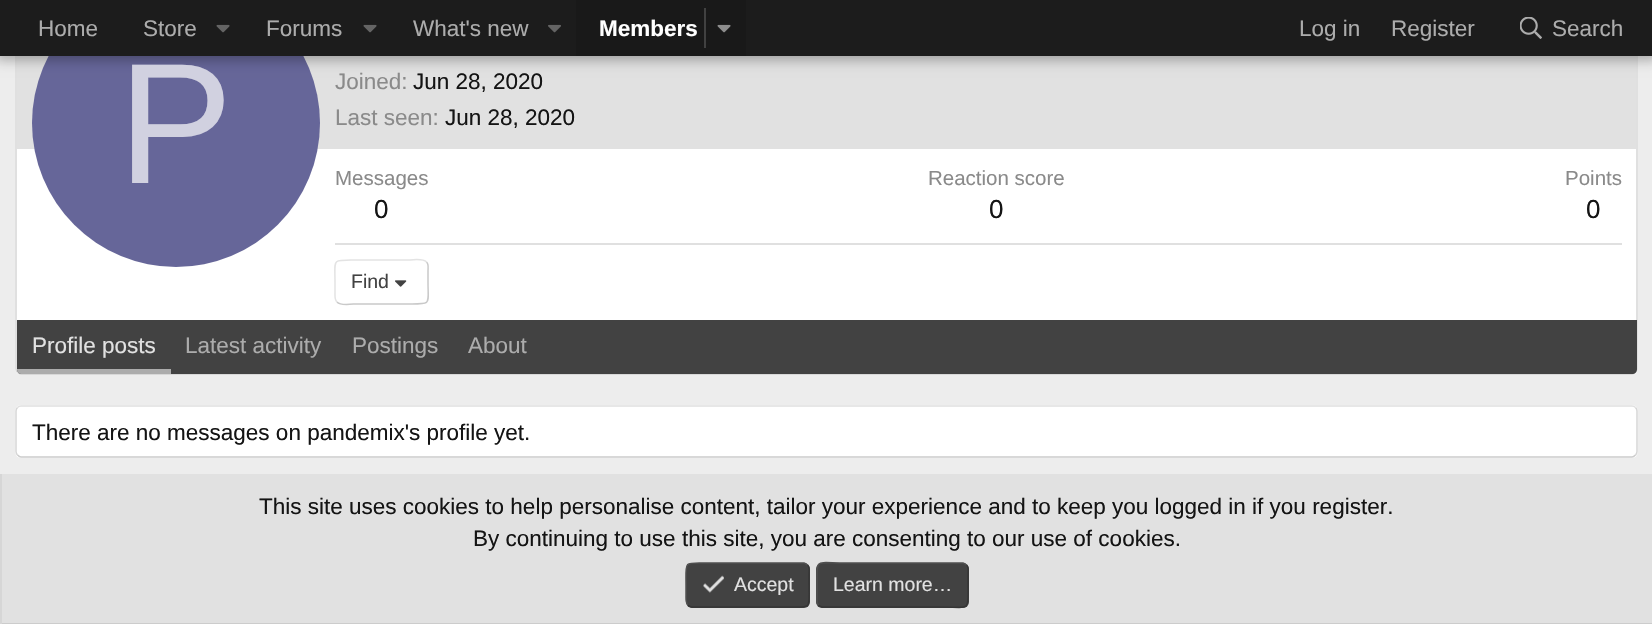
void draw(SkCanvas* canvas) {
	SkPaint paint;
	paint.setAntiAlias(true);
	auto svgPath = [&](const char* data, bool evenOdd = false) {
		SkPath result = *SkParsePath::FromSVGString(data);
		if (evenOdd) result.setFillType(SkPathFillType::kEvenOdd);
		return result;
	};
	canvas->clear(0xffededed);
	paint.setColor(0xffffffff);
	canvas->drawRoundRect(SkRect::MakeXYWH(15, -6, 1623, 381), 6, 6, paint);
	paint.setStroke(true);
	paint.setStrokeWidth(1.5);
	paint.setColor(0xffd6d6d6);
	canvas->drawPath(svgPath("M1635.5-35C1636.5-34 1637-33 1637-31.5V369C1637 370.5 1636.5 371.5 1635.5 372.5"), paint);
	paint.setColor(0xffcccccc);
	canvas->drawPath(svgPath("M1635.5 372.5C1634.5 373.5 1633.5 374 1632 374H21C19.5 374 18.5 373.5 17.5 372.5"), paint);
	paint.setColor(0xffd6d6d6);
	canvas->drawPath(svgPath("M17.5 372.5C16.5 371.5 16 370.5 16 369V-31.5C16-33 16.5-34 17.5-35"), paint);
	paint.setStroke(false);
	paint.setColor(0xffe1e1e1);
	canvas->drawRect(SkRect::MakeXYWH(17, 56, 1619, 93), paint);
	paint.setColor(0xff666699);
	canvas->drawCircle(176, 123, 144, paint);
	paint.setColor(0x4d000000);
	paint.setMaskFilter(SkMaskFilter::MakeBlur(kNormal_SkBlurStyle, 6));
	canvas->drawRect(SkRect::MakeXYWH(-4, -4, 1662, 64), paint);
	paint.setMaskFilter(nullptr);
	paint.setColor(0xff1c1c1c);
	canvas->drawRect(SkRect::MakeXYWH(0, 0, 1652, 56), paint);
	SkFont f1(fontMgr->matchFamilyStyle("Liberation Sans", SkFontStyle::Normal()), 22.5);
	f1.setSubpixel(true);
	paint.setColor(0xffacacac);
	canvas->drawString("Home", 38, 36, f1, paint);
	canvas->drawString("Store", 143, 36, f1, paint);
	canvas->drawImageRect(SkImages::DeferredFromEncodedData(SkData::MakeFromFileName("img1.png")), SkRect::MakeXYWH(216, 24, 14, 9), SkSamplingOptions());
	canvas->drawString("Forums", 266, 36, f1, paint);
	canvas->drawImageRect(SkImages::DeferredFromEncodedData(SkData::MakeFromFileName("img1.png")), SkRect::MakeXYWH(363, 24, 14, 9), SkSamplingOptions());
	canvas->drawString("What's new", 413, 36, f1, paint);
	canvas->drawImageRect(SkImages::DeferredFromEncodedData(SkData::MakeFromFileName("img2.png")), SkRect::MakeXYWH(548, 24, 13, 9), SkSamplingOptions());
	paint.setColor(0xff191919);
	canvas->drawRect(SkRect::MakeXYWH(576, 0, 170, 56), paint);
	SkFont f2(fontMgr->matchFamilyStyle("Liberation Sans", SkFontStyle::Bold()), 22.5);
	f2.setSubpixel(true);
	paint.setColor(0xffffffff);
	canvas->drawString("Members", 599, 36, f2, paint);
	paint.setColor(0xff414141);
	canvas->drawRect(SkRect::MakeXYWH(704, 8, 2, 40), paint);
	canvas->drawImageRect(SkImages::DeferredFromEncodedData(SkData::MakeFromFileName("img3.png")), SkRect::MakeXYWH(717, 24, 14, 9), SkSamplingOptions());
	paint.setColor(0xffacacac);
	canvas->drawString("Log in", 1299, 36, f1, paint);
	canvas->drawString("Register", 1391, 36, f1, paint);
	canvas->drawImageRect(SkImages::DeferredFromEncodedData(SkData::MakeFromFileName("img4.png")), SkRect::MakeXYWH(1520, 17, 22, 22), SkSamplingOptions());
	canvas->drawString("Search", 1552, 36, f1, paint);
	SkFont f3(fontMgr->matchFamilyStyle("Liberation Sans", SkFontStyle::Normal()), 172);
	f3.setSubpixel(true);
	paint.setColor(0xffd1d1e0);
	canvas->drawString("P", 118, 183, f3, paint);
	paint.setColor(0xff8a8a8a);
	canvas->drawString("Joined:", 335, 89, f1, paint);
	paint.setColor(0xff141414);
	canvas->drawString("Jun 28, 2020", 413, 89, f1, paint);
	paint.setColor(0xff8a8a8a);
	canvas->drawString("Last seen:", 335, 125, f1, paint);
	paint.setColor(0xff141414);
	canvas->drawString("Jun 28, 2020", 445, 125, f1, paint);
	SkFont f4(fontMgr->matchFamilyStyle("Liberation Sans", SkFontStyle::Normal()), 20.5);
	f4.setSubpixel(true);
	paint.setColor(0xff8a8a8a);
	canvas->drawString("Messages", 335, 185, f4, paint);
	SkFont f5(fontMgr->matchFamilyStyle("Liberation Sans", SkFontStyle::Normal()), 26);
	f5.setSubpixel(true);
	paint.setColor(0xff141414);
	canvas->drawString("0", 374, 218, f5, paint);
	paint.setColor(0xff8a8a8a);
	canvas->drawString("Reaction score", 928, 185, f4, paint);
	paint.setColor(0xff141414);
	canvas->drawString("0", 989, 218, f5, paint);
	paint.setColor(0xff8a8a8a);
	canvas->drawString("Points", 1565, 185, f4, paint);
	paint.setColor(0xff141414);
	canvas->drawString("0", 1586, 218, f5, paint);
	paint.setColor(0xffe0e0e0);
	canvas->drawRect(SkRect::MakeXYWH(335, 243, 1287, 2), paint);
	paint.setStroke(true);
	paint.setColor(0xffc9c9c9);
	canvas->drawPath(svgPath("M426.5 262C429 264 428 268 428 271V282C428 305 432 304 409 304H354C353.5 304 340.5 306 337 302"), paint);
	paint.setColor(0xffe3e3e3);
	canvas->drawPath(svgPath("M337 302C334.5 300 335 296 335 293V282C335 259 331.5 260 354 260H409C410 260 423 258 426.5 262"), paint);
	SkFont f6(fontMgr->matchFamilyStyle("Liberation Sans", SkFontStyle::Normal()), 19.5);
	f6.setSubpixel(true);
	paint.setStroke(false);
	paint.setColor(0xff424242);
	canvas->drawString("Find", 351, 288, f6, paint);
	canvas->drawImageRect(SkImages::DeferredFromEncodedData(SkData::MakeFromFileName("img5.png")), SkRect::MakeXYWH(395, 280, 12, 7), SkSamplingOptions());
	canvas->drawPath(svgPath("M17 320H1637V369C1637 372 1635 374 1632 374H22C19 374 17 372 17 369Z"), paint);
	paint.setColor(0xffacacac);
	canvas->drawPath(svgPath("M17 369H171V374H22C19 374 17 372 17 369Z"), paint);
	paint.setColor(0xffe1e1e1);
	canvas->drawString("Profile posts", 32, 353, f1, paint);
	paint.setColor(0xffacacac);
	canvas->drawString("Latest activity", 185, 353, f1, paint);
	canvas->drawString("Postings", 352, 353, f1, paint);
	canvas->drawString("About", 468, 353, f1, paint);
	paint.setColor(0xffffffff);
	canvas->drawRoundRect(SkRect::MakeXYWH(15, 405, 1623, 53), 6, 6, paint);
	paint.setStroke(true);
	paint.setColor(0xffe0e0e0);
	canvas->drawPath(svgPath("M17.5 407.5C18.5 406.5 19.5 406 21 406H1632C1633.5 406 1634.5 406.5 1635.5 407.5"), paint);
	paint.setColor(0xffd6d6d6);
	canvas->drawPath(svgPath("M1635.5 407.5C1636.5 408.5 1637 409.5 1637 411V451.5C1637 453 1636.5 454 1635.5 455"), paint);
	paint.setColor(0xffcccccc);
	canvas->drawPath(svgPath("M1635.5 455C1634.5 456 1633.5 457 1632 457H21C19.5 457 18.5 456 17.5 455"), paint);
	paint.setColor(0xffd6d6d6);
	canvas->drawPath(svgPath("M17.5 455C16.5 454 16 453 16 451.5V411C16 409.5 16.5 408.5 17.5 407.5"), paint);
	paint.setStroke(false);
	paint.setColor(0xff141414);
	canvas->drawString("There are no messages on pandemix's profile yet.", 32, 440, f1, paint);
	paint.setColor(0xffe1e1e1);
	canvas->drawRect(SkRect::MakeXYWH(2, 474, 1650, 149), paint);
	paint.setColor(0xffcccccc);
	canvas->drawRect(SkRect::MakeXYWH(0, 623, 1652, 1), paint);
	paint.setColor(0xffd6d6d6);
	canvas->drawRect(SkRect::MakeXYWH(0, 474, 2, 150), paint);
	paint.setColor(0xff141414);
	canvas->drawString("This site uses cookies to help personalise content, tailor your experience and to keep you logged in if you register.", 259, 514, f1, paint);
	canvas->drawString("By continuing to use this site, you are consenting to our use of cookies.", 473, 546, f1, paint);
	paint.setColor(0xff424242);
	canvas->drawRoundRect(SkRect::MakeXYWH(686, 563, 124, 45), 6, 6, paint);
	paint.setStroke(true);
	paint.setColor(0xff353535);
	canvas->drawPath(svgPath("M807.5 565C810 567 809 571 809 574V585C809 610.5 812.5 607 785 607H691.5C690 606.5 689 606 688 605"), paint);
	paint.setColor(0xff4f4f4f);
	canvas->drawPath(svgPath("M688 605C685.5 603 686 599 686 596V585C686 559.5 683 563 710 563H804C805.5 563.5 806.5 564 807.5 565"), paint);
	canvas->drawImageRect(SkImages::DeferredFromEncodedData(SkData::MakeFromFileName("img6.png")), SkRect::MakeXYWH(703, 575, 21, 18), SkSamplingOptions());
	paint.setStroke(false);
	paint.setColor(0xffe1e1e1);
	canvas->drawString("Accept", 734, 591, f6, paint);
	paint.setColor(0xff424242);
	canvas->drawRoundRect(SkRect::MakeXYWH(816, 563, 153, 45), 6, 6, paint);
	paint.setStroke(true);
	paint.setColor(0xff353535);
	canvas->drawPath(svgPath("M966.5 565C969 567 968 571 968 574V585C968 612.5 971 607 939.5 607H822C820.5 606.5 819.5 606 818.5 605"), paint);
	paint.setColor(0xff4f4f4f);
	canvas->drawPath(svgPath("M818.5 605C816 603 817 599 817 596V585C817 557.5 814 563 845.5 563H963C964.5 563.5 965.5 564 966.5 565"), paint);
	paint.setStroke(false);
	paint.setColor(0xffe1e1e1);
	canvas->drawString("Learn more…", 833, 591, f6, paint);
}
